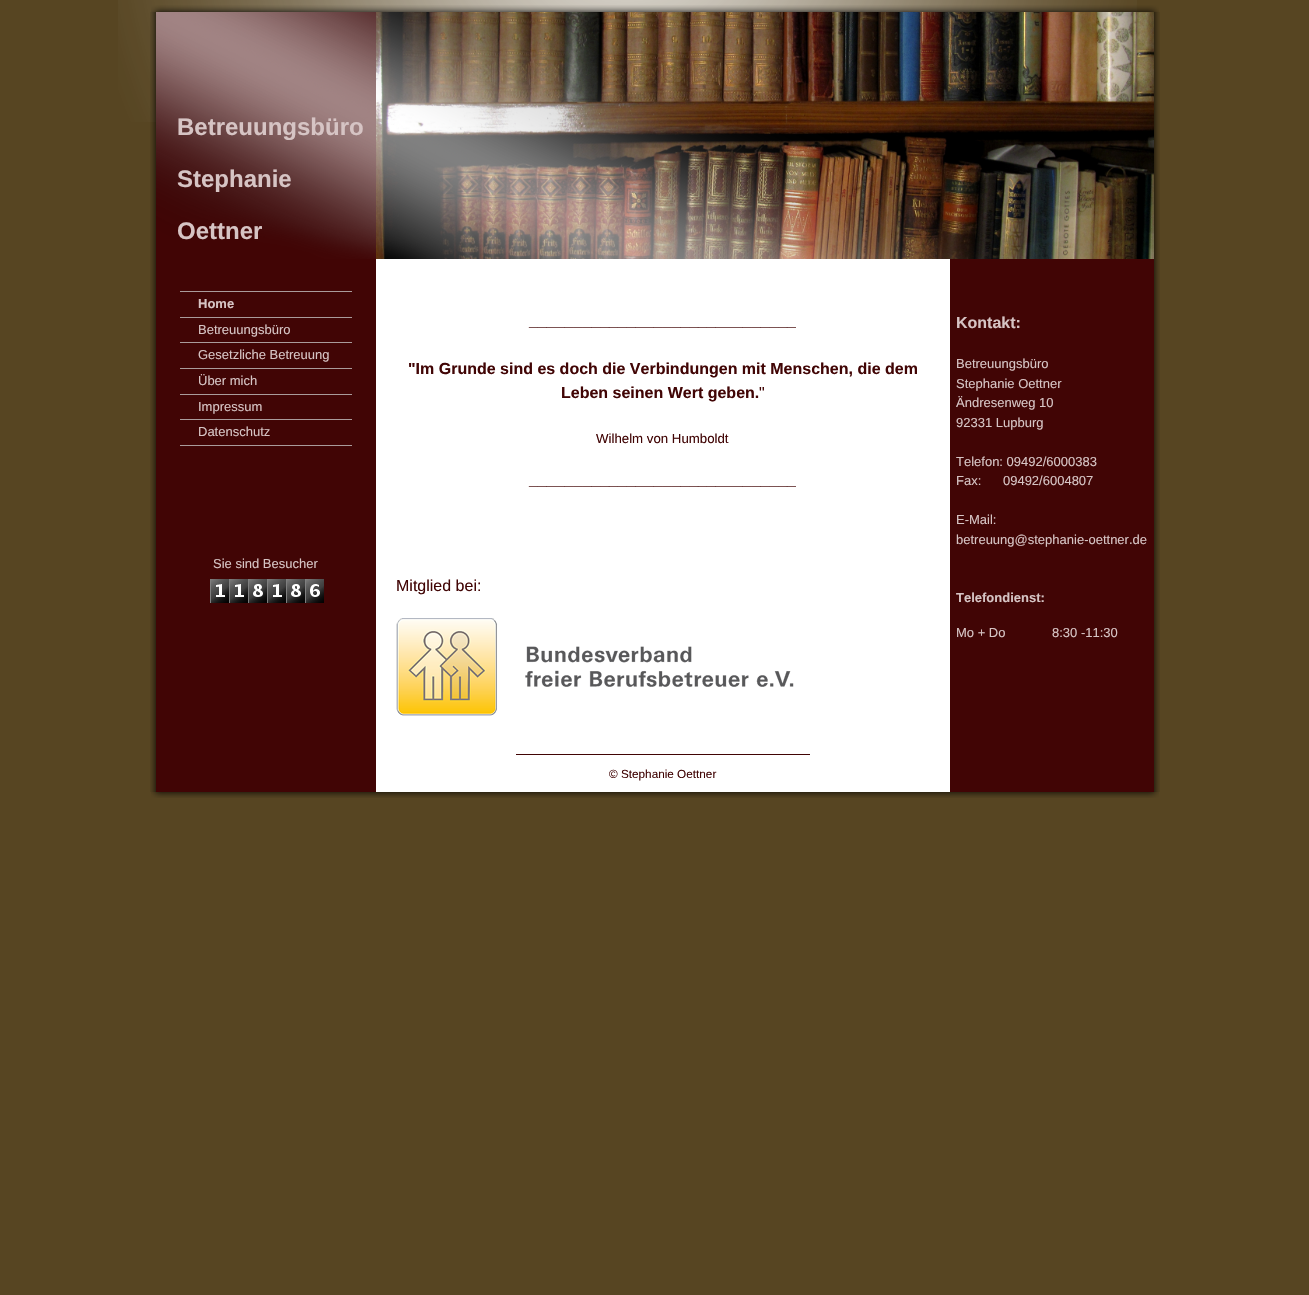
void draw(SkCanvas* canvas) {
	SkPaint paint;
	paint.setAntiAlias(true);
	canvas->clear(0xff574522);
	canvas->drawImageRect(SkImages::DeferredFromEncodedData(SkData::MakeFromFileName("img1.png")), SkRect::MakeXYWH(118, 0, 1019, 122), SkSamplingOptions());
	canvas->drawImageRect(SkImages::DeferredFromEncodedData(SkData::MakeFromFileName("img2.png")), SkRect::MakeXYWH(151, 5, 1008, 7), SkSamplingOptions());
	canvas->drawImageRect(SkImages::DeferredFromEncodedData(SkData::MakeFromFileName("img3.png")), SkRect::MakeXYWH(150, 12, 1010, 780), SkSamplingOptions());
	paint.setColor(0xff410505);
	canvas->drawRect(SkRect::MakeXYWH(156, 12, 220, 780), paint);
	canvas->drawImageRect(SkImages::DeferredFromEncodedData(SkData::MakeFromFileName("img5.png")), SkRect::MakeXYWH(376, 12, 778, 247), SkSamplingOptions());
	canvas->drawImageRect(SkImages::DeferredFromEncodedData(SkData::MakeFromFileName("img4.png")), SkRect::MakeXYWH(156, 12, 918, 247), SkSamplingOptions());
	SkFont f1(fontMgr->matchFamilyStyle("Liberation Sans", SkFontStyle::Bold()), 24);
	f1.setSubpixel(true);
	paint.setColor(0xffd6c4c4);
	canvas->drawString("Betreuungsbüro", 177, 135, f1, paint);
	canvas->drawString("Stephanie", 177, 187, f1, paint);
	canvas->drawString("Oettner", 177, 239, f1, paint);
	paint.setColor(0xffaa9b9b);
	canvas->drawRect(SkRect::MakeXYWH(180, 445, 172, 1), paint);
	canvas->drawRect(SkRect::MakeXYWH(180, 291, 172, 1), paint);
	SkFont f2(fontMgr->matchFamilyStyle("Liberation Sans", SkFontStyle::Bold()), 13);
	f2.setSubpixel(true);
	paint.setColor(0xffd6c4c4);
	canvas->drawString("Home", 198, 308, f2, paint);
	paint.setColor(0xffaa9b9b);
	canvas->drawRect(SkRect::MakeXYWH(180, 317, 172, 1), paint);
	SkFont f3(fontMgr->matchFamilyStyle("Liberation Sans", SkFontStyle::Normal()), 13);
	f3.setSubpixel(true);
	paint.setColor(0xffd6c4c4);
	canvas->drawString("Betreuungsbüro", 198, 334, f3, paint);
	paint.setColor(0xffaa9b9b);
	canvas->drawRect(SkRect::MakeXYWH(180, 342, 172, 1), paint);
	paint.setColor(0xffd6c4c4);
	canvas->drawString("Gesetzliche Betreuung", 198, 359, f3, paint);
	paint.setColor(0xffaa9b9b);
	canvas->drawRect(SkRect::MakeXYWH(180, 368, 172, 1), paint);
	paint.setColor(0xffd6c4c4);
	canvas->drawString("Über mich", 198, 385, f3, paint);
	paint.setColor(0xffaa9b9b);
	canvas->drawRect(SkRect::MakeXYWH(180, 394, 172, 1), paint);
	paint.setColor(0xffd6c4c4);
	canvas->drawString("Impressum", 198, 411, f3, paint);
	paint.setColor(0xffaa9b9b);
	canvas->drawRect(SkRect::MakeXYWH(180, 419, 172, 1), paint);
	paint.setColor(0xffd6c4c4);
	canvas->drawString("Datenschutz", 198, 436, f3, paint);
	canvas->drawString("Sie sind Besucher", 213, 568, f3, paint);
	canvas->drawImageRect(SkImages::DeferredFromEncodedData(SkData::MakeFromFileName("img6.png")), SkRect::MakeXYWH(210, 579, 114, 24), SkSamplingOptions());
	paint.setColor(0xffffffff);
	canvas->drawRect(SkRect::MakeXYWH(376, 259, 574, 533), paint);
	SkFont f4(fontMgr->matchFamilyStyle("Liberation Sans", SkFontStyle::Bold()), 16);
	f4.setSubpixel(true);
	paint.setColor(0xff410505);
	canvas->drawString("______________________________", 529, 326, f4, paint);
	canvas->drawString("\"Im Grunde sind es doch die Verbindungen mit Menschen, die dem", 408, 374, f4, paint);
	canvas->drawString("Leben seinen Wert geben.", 561, 398, f4, paint);
	SkFont f5(fontMgr->matchFamilyStyle("Liberation Sans", SkFontStyle::Normal()), 16);
	f5.setSubpixel(true);
	canvas->drawString("\"", 759, 398, f5, paint);
	SkFont f6(fontMgr->matchFamilyStyle("Liberation Sans", SkFontStyle::Normal()), 13.25);
	f6.setSubpixel(true);
	canvas->drawString("Wilhelm von Humboldt", 596, 443, f6, paint);
	canvas->drawString("______________________________", 529, 485, f4, paint);
	canvas->drawString("Mitglied bei:", 396, 591, f5, paint);
	canvas->drawImageRect(SkImages::DeferredFromEncodedData(SkData::MakeFromFileName("img7.png")), SkRect::MakeXYWH(396, 618, 398, 98), SkSamplingOptions());
	canvas->drawRect(SkRect::MakeXYWH(516, 754, 294, 1), paint);
	SkFont f7(fontMgr->matchFamilyStyle("Liberation Sans", SkFontStyle::Normal()), 11.75);
	f7.setSubpixel(true);
	canvas->drawString("© Stephanie Oettner", 609, 778, f7, paint);
	canvas->drawRect(SkRect::MakeXYWH(950, 259, 204, 533), paint);
	paint.setColor(0xffd6c4c4);
	canvas->drawString("Kontakt:", 956, 328, f4, paint);
	canvas->drawString("Betreuungsbüro", 956, 368, f3, paint);
	canvas->drawString("Stephanie Oettner", 956, 388, f3, paint);
	canvas->drawString("Ändresenweg 10", 956, 407, f3, paint);
	canvas->drawString("92331 Lupburg", 956, 427, f3, paint);
	canvas->drawString("Telefon: 09492/6000383", 956, 466, f3, paint);
	canvas->drawString("Fax:      09492/6004807", 956, 485, f3, paint);
	canvas->drawString("E-Mail:", 956, 524, f3, paint);
	canvas->drawString("betreuung@stephanie-oettner.de", 956, 544, f3, paint);
	canvas->drawString("Telefondienst:", 956, 602, f2, paint);
	canvas->drawString("Mo + Do", 956, 637, f3, paint);
	canvas->drawString("8:30 -11:30", 1052, 637, f3, paint);
	canvas->drawImageRect(SkImages::DeferredFromEncodedData(SkData::MakeFromFileName("img8.png")), SkRect::MakeXYWH(151, 792, 1008, 6), SkSamplingOptions());
}
